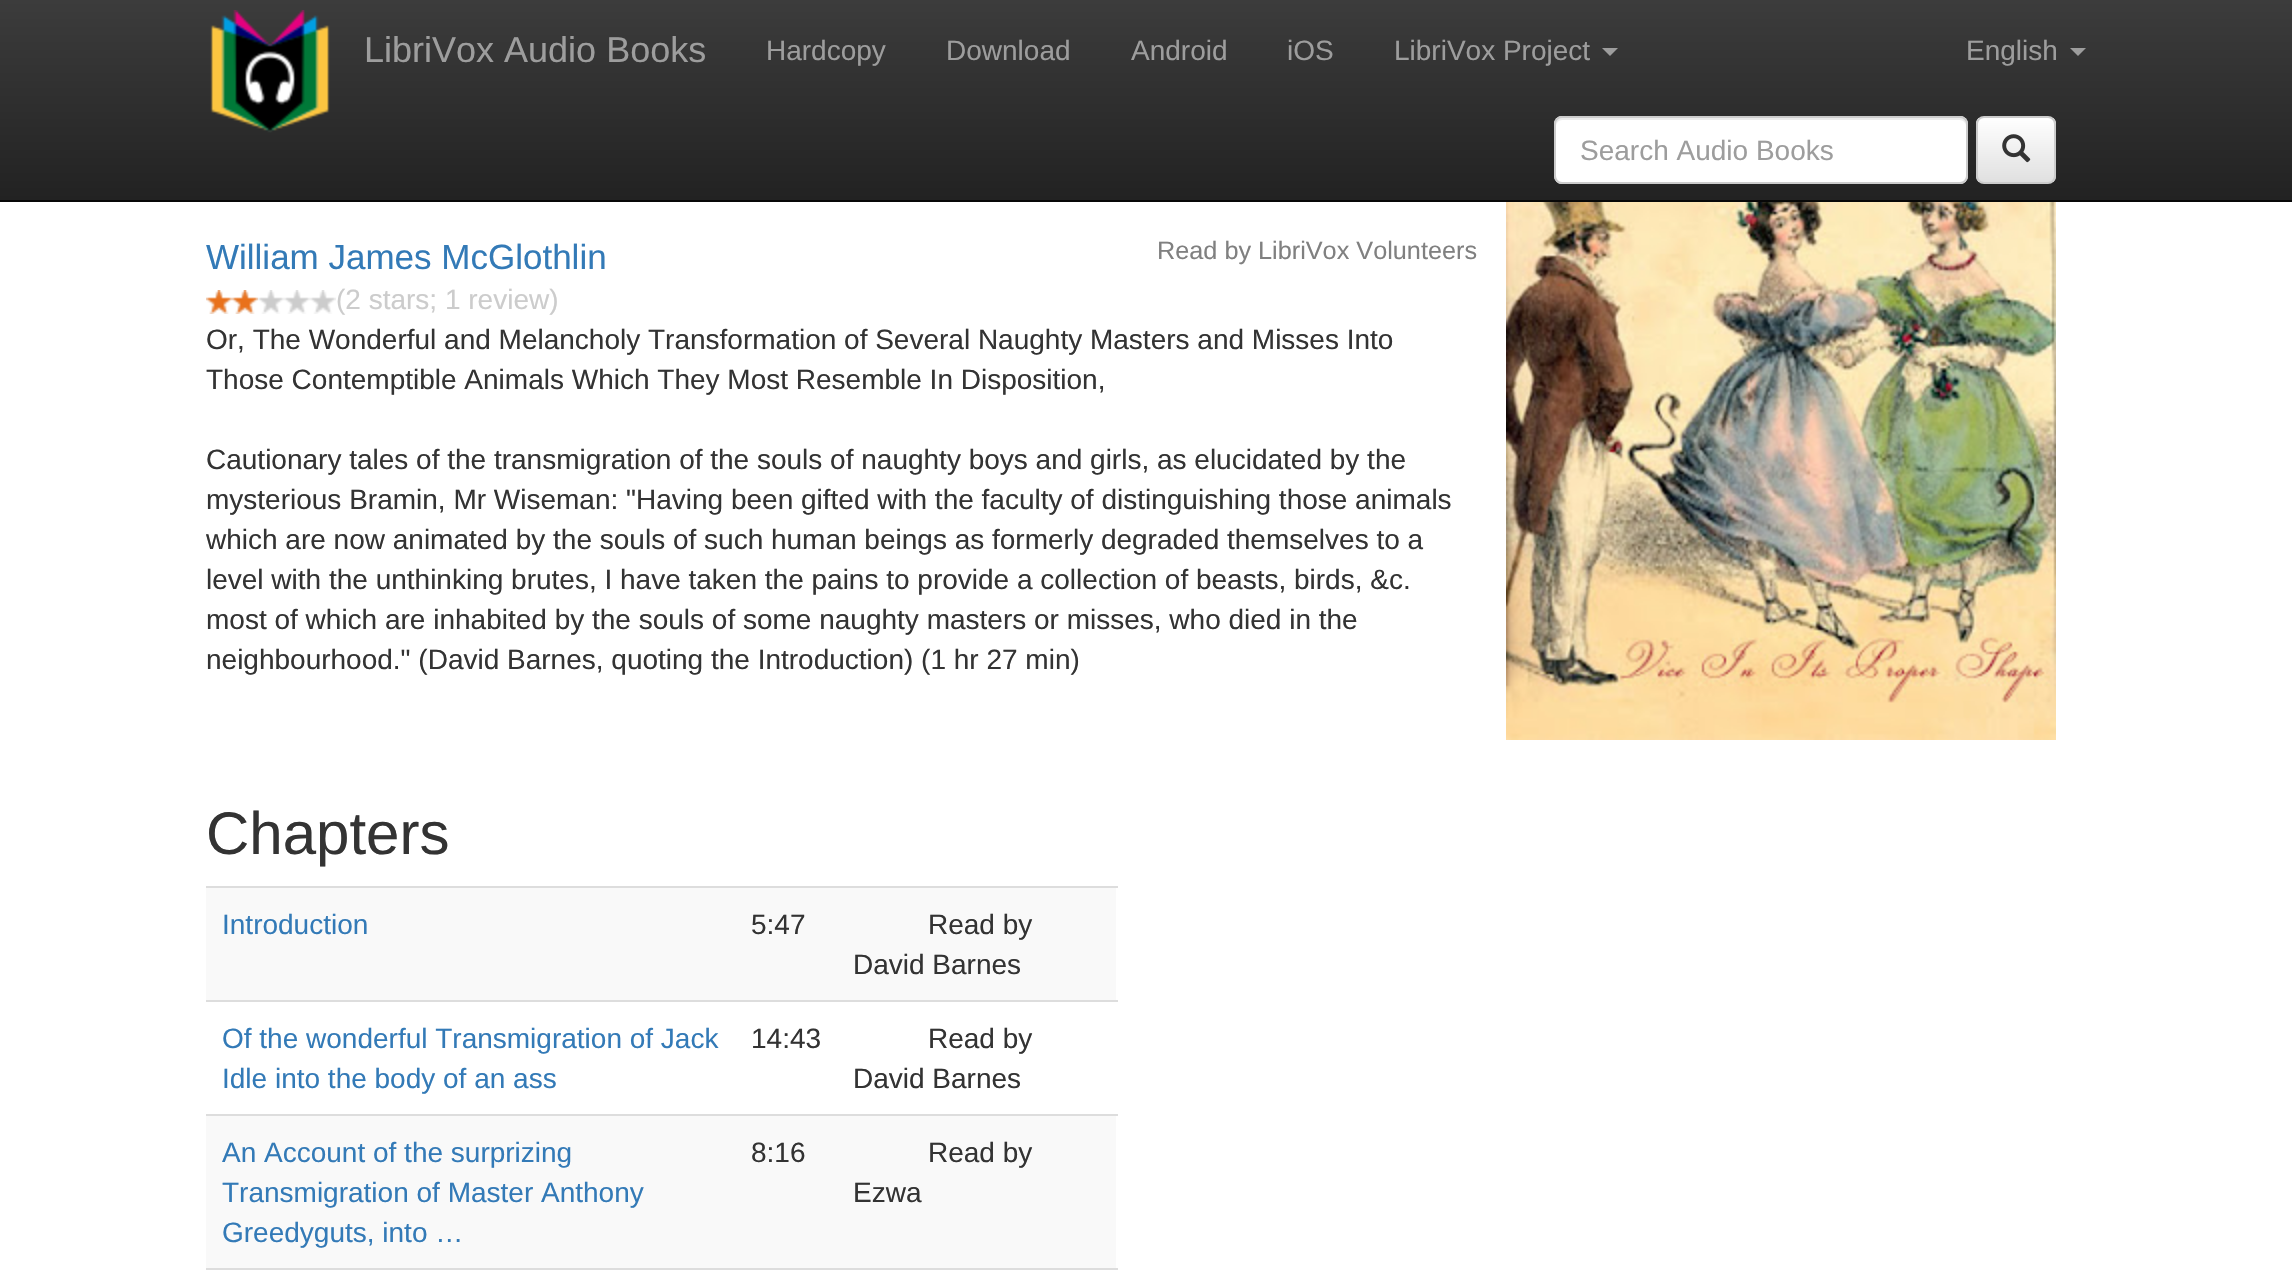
void draw(SkCanvas* canvas) {
	SkPaint paint;
	paint.setAntiAlias(true);
	auto svgPath = [&](const char* data, bool evenOdd = false) {
		SkPath result = *SkParsePath::FromSVGString(data);
		if (evenOdd) result.setFillType(SkPathFillType::kEvenOdd);
		return result;
	};
	canvas->clear(0xffffffff);
	{
		const SkColor colors[] = {0xff3c3c3c, 0xff222222};
		const float stops[] = {0, 1};
		const SkPoint ends[] = {{1146, 0}, {1146, 200}};
		paint.setShader(SkGradientShader::MakeLinear(ends, colors, stops, 2, SkTileMode::kClamp));
		paint.setAlpha(255);
	}
	canvas->drawRect(SkRect::MakeXYWH(0, 0, 2292, 200), paint);
	paint.setShader(nullptr);
	paint.setColor(0xff080808);
	canvas->drawRect(SkRect::MakeXYWH(0, 200, 2292, 2), paint);
	canvas->drawImageRect(SkImages::DeferredFromEncodedData(SkData::MakeFromFileName("img1.png")), SkRect::MakeXYWH(210, 10, 120, 123), SkSamplingOptions());
	SkFont f1(fontMgr->matchFamilyStyle("Liberation Sans", SkFontStyle::Normal()), 36);
	f1.setSubpixel(true);
	paint.setColor(0xff9d9d9d);
	canvas->drawString("LibriVox Audio Books", 364, 62, f1, paint);
	SkFont f2(fontMgr->matchFamilyStyle("Liberation Sans", SkFontStyle::Normal()), 28);
	f2.setSubpixel(true);
	canvas->drawString("Hardcopy", 766, 60, f2, paint);
	canvas->drawString("Download", 946, 60, f2, paint);
	canvas->drawString("Android", 1131, 60, f2, paint);
	canvas->drawString("iOS", 1287, 60, f2, paint);
	canvas->drawString("LibriVox Project", 1394, 60, f2, paint);
	canvas->drawPath(svgPath("M1602 48H1618L1610 56Z"), paint);
	canvas->drawString("English", 1966, 60, f2, paint);
	canvas->drawPath(svgPath("M2070 48H2086L2078 56Z"), paint);
	paint.setColor(0xffffffff);
	canvas->drawRoundRect(SkRect::MakeXYWH(1554, 116, 414, 68), 8, 8, paint);
	paint.setColor(0xffececec);
	canvas->drawPath(svgPath("M1562 120H1960C1963 120 1966 123 1966 126C1966 122 1965 118 1960 118H1562C1557 118 1556 122 1556 126C1556 123 1559 120 1562 120Z"), paint);
	paint.setStroke(true);
	paint.setStrokeWidth(2);
	paint.setColor(0xffcccccc);
	canvas->drawRoundRect(SkRect::MakeXYWH(1555, 117, 412, 66), 7, 7, paint);
	paint.setStroke(false);
	paint.setColor(0xff9d9d9d);
	canvas->drawString("Search Audio Books", 1580, 160, f2, paint);
	canvas->save();
	canvas->clipPath(svgPath("M1984 116H2048C2052.5 116 2056 119.5 2056 124V176C2056 180.5 2052.5 184 2048 184H1984C1979.5 184 1976 180.5 1976 176V124C1976 119.5 1979.5 116 1984 116Z"), true);
	{
		const SkColor colors[] = {0xffffffff, 0xffe0e0e0};
		const float stops[] = {0, 1};
		const SkPoint ends[] = {{2016, 118}, {2016, 182}};
		paint.setShader(SkGradientShader::MakeLinear(ends, colors, stops, 2, SkTileMode::kClamp));
		paint.setAlpha(255);
	}
	canvas->drawRect(SkRect::MakeXYWH(1976, 118, 80, 64), paint);
	canvas->restore();
	paint.setShader(nullptr);
	paint.setColor(0xffffffff);
	canvas->drawPath(svgPath("M1984 120H2048C2051 120 2054 123 2054 126C2054 116 2046 118 2037 118H1995C1986 118 1978 116 1978 126C1978 123 1981 120 1984 120Z"), paint);
	paint.setStroke(true);
	paint.setColor(0xffcccccc);
	canvas->drawRoundRect(SkRect::MakeXYWH(1977, 117, 78, 66), 7, 7, paint);
	canvas->drawImageRect(SkImages::DeferredFromEncodedData(SkData::MakeFromFileName("img2.png")), SkRect::MakeXYWH(2002, 134, 29, 29), SkSamplingOptions());
	SkFont f3(fontMgr->matchFamilyStyle("Liberation Sans", SkFontStyle::Normal()), 35);
	f3.setSubpixel(true);
	paint.setStroke(false);
	paint.setColor(0xff337ab7);
	canvas->drawString("William James McGlothlin", 206, 269, f3, paint);
	SkFont f4(fontMgr->matchFamilyStyle("Liberation Sans", SkFontStyle::Normal()), 25.25);
	f4.setSubpixel(true);
	paint.setColor(0xff808080);
	canvas->drawString("Read by LibriVox Volunteers", 1157, 259, f4, paint);
	canvas->drawImageRect(SkImages::DeferredFromEncodedData(SkData::MakeFromFileName("img3.png")), SkRect::MakeXYWH(1506, 202, 550, 538), SkSamplingOptions());
	canvas->drawImageRect(SkImages::DeferredFromEncodedData(SkData::MakeFromFileName("img4.png")), SkRect::MakeXYWH(206, 290, 26, 24), SkSamplingOptions());
	canvas->drawImageRect(SkImages::DeferredFromEncodedData(SkData::MakeFromFileName("img4.png")), SkRect::MakeXYWH(232, 290, 26, 24), SkSamplingOptions());
	canvas->drawImageRect(SkImages::DeferredFromEncodedData(SkData::MakeFromFileName("img5.png")), SkRect::MakeXYWH(258, 290, 26, 24), SkSamplingOptions());
	canvas->drawImageRect(SkImages::DeferredFromEncodedData(SkData::MakeFromFileName("img5.png")), SkRect::MakeXYWH(284, 290, 26, 24), SkSamplingOptions());
	canvas->drawImageRect(SkImages::DeferredFromEncodedData(SkData::MakeFromFileName("img5.png")), SkRect::MakeXYWH(310, 290, 26, 24), SkSamplingOptions());
	paint.setColor(0xffcccccc);
	canvas->drawString("(2 stars; 1 review)", 336, 309, f2, paint);
	paint.setColor(0xff333333);
	canvas->drawString("Or, The Wonderful and Melancholy Transformation of Several Naughty Masters and Misses Into", 206, 349, f2, paint);
	canvas->drawString("Those Contemptible Animals Which They Most Resemble In Disposition,", 206, 389, f2, paint);
	canvas->drawString("Cautionary tales of the transmigration of the souls of naughty boys and girls, as elucidated by the", 206, 469, f2, paint);
	canvas->drawString("mysterious Bramin, Mr Wiseman: \"Having been gifted with the faculty of distinguishing those animals", 206, 509, f2, paint);
	canvas->drawString("which are now animated by the souls of such human beings as formerly degraded themselves to a", 206, 549, f2, paint);
	canvas->drawString("level with the unthinking brutes, I have taken the pains to provide a collection of beasts, birds, &c.", 206, 589, f2, paint);
	canvas->drawString("most of which are inhabited by the souls of some naughty masters or misses, who died in the", 206, 629, f2, paint);
	canvas->drawString("neighbourhood.\" (David Barnes, quoting the Introduction) (1 hr 27 min)", 206, 669, f2, paint);
	SkFont f5(fontMgr->matchFamilyStyle("Liberation Sans", SkFontStyle::Normal()), 60);
	f5.setSubpixel(true);
	canvas->drawString("Chapters", 206, 854, f5, paint);
	paint.setColor(0xfff9f9f9);
	canvas->drawRect(SkRect::MakeXYWH(206, 888, 910, 112), paint);
	paint.setColor(0xff337ab7);
	canvas->drawString("Introduction", 222, 934, f2, paint);
	paint.setColor(0xff333333);
	canvas->drawString("5:47", 751, 934, f2, paint);
	paint.setColor(0xffdddddd);
	canvas->drawRect(SkRect::MakeXYWH(206, 886, 912, 2), paint);
	paint.setColor(0xff333333);
	canvas->drawString("Read by", 928, 934, f2, paint);
	canvas->drawString("David Barnes", 853, 974, f2, paint);
	paint.setColor(0xff337ab7);
	canvas->drawString("Of the wonderful Transmigration of Jack", 222, 1048, f2, paint);
	canvas->drawString("Idle into the body of an ass", 222, 1088, f2, paint);
	paint.setColor(0xff333333);
	canvas->drawString("14:43", 751, 1048, f2, paint);
	paint.setColor(0xffdddddd);
	canvas->drawRect(SkRect::MakeXYWH(206, 1000, 912, 2), paint);
	paint.setColor(0xff333333);
	canvas->drawString("Read by", 928, 1048, f2, paint);
	canvas->drawString("David Barnes", 853, 1088, f2, paint);
	paint.setColor(0xfff9f9f9);
	canvas->drawRect(SkRect::MakeXYWH(206, 1116, 910, 152), paint);
	paint.setColor(0xff337ab7);
	canvas->drawString("An Account of the surprizing", 222, 1162, f2, paint);
	canvas->drawString("Transmigration of Master Anthony", 222, 1202, f2, paint);
	canvas->drawString("Greedyguts, into …", 222, 1242, f2, paint);
	paint.setColor(0xff333333);
	canvas->drawString("8:16", 751, 1162, f2, paint);
	paint.setColor(0xffdddddd);
	canvas->drawRect(SkRect::MakeXYWH(206, 1114, 912, 2), paint);
	paint.setColor(0xff333333);
	canvas->drawString("Read by", 928, 1162, f2, paint);
	canvas->drawString("Ezwa", 853, 1202, f2, paint);
	paint.setColor(0xffdddddd);
	canvas->drawRect(SkRect::MakeXYWH(206, 1268, 912, 2), paint);
}
